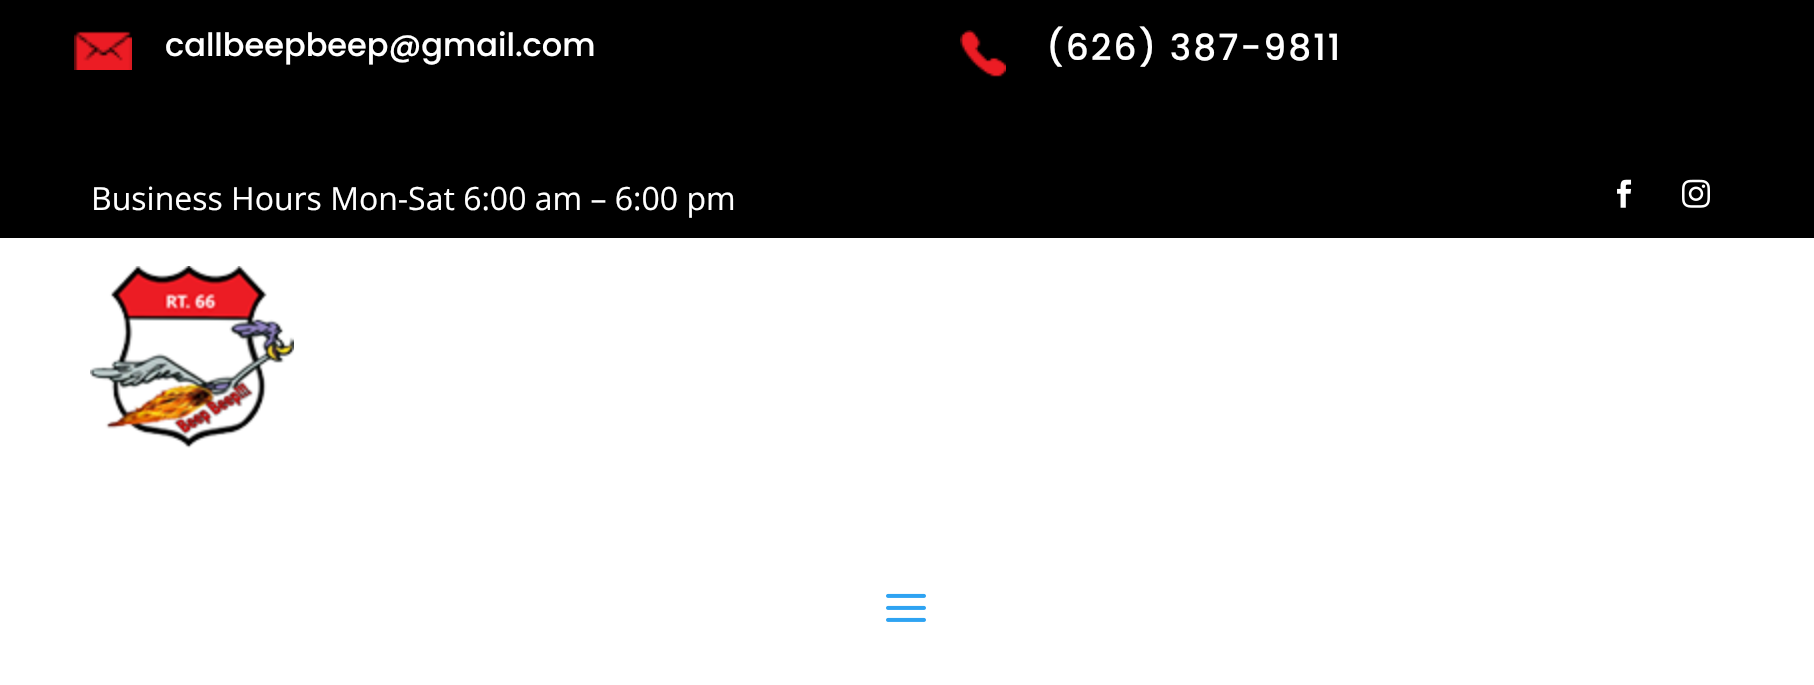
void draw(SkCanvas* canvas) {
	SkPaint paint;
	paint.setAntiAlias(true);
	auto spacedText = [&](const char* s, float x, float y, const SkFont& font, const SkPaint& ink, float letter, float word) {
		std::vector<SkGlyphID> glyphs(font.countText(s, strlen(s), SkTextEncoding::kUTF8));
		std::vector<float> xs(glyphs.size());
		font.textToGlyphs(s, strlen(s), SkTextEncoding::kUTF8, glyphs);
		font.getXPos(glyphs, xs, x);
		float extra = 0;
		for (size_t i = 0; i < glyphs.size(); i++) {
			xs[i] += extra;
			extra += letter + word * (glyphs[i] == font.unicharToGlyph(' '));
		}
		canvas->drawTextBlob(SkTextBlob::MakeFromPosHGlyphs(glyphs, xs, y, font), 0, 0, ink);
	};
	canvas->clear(0xffffffff);
	paint.setColor(0xff000000);
	canvas->drawRect(SkRect::MakeXYWH(0, 0, 1814, 238), paint);
	canvas->drawImageRect(SkImages::DeferredFromEncodedData(SkData::MakeFromFileName("img1.png")), SkRect::MakeXYWH(74, 31, 58, 39), SkSamplingOptions());
	SkFont f1(fontMgr->matchFamilyStyle("Poppins", SkFontStyle(500, SkFontStyle::kNormal_Width, SkFontStyle::kUpright_Slant)), 32);
	f1.setSubpixel(true);
	paint.setColor(0xffffffff);
	canvas->drawString("callbeepbeep@gmail.com", 165, 56, f1, paint);
	canvas->drawImageRect(SkImages::DeferredFromEncodedData(SkData::MakeFromFileName("img2.png")), SkRect::MakeXYWH(960, 30, 46, 47), SkSamplingOptions());
	SkFont f2(fontMgr->matchFamilyStyle("Poppins", SkFontStyle(500, SkFontStyle::kNormal_Width, SkFontStyle::kUpright_Slant)), 36);
	f2.setSubpixel(true);
	spacedText("(626) 387-9811", 1046, 60, f2, paint, 2, 0);
	SkFont f3(fontMgr->matchFamilyStyle("Open Sans", SkFontStyle::Normal()), 32);
	f3.setSubpixel(true);
	canvas->drawString("Business Hours Mon-Sat 6:00 am – 6:00 pm", 91, 210, f3, paint);
	canvas->drawImageRect(SkImages::DeferredFromEncodedData(SkData::MakeFromFileName("img3.png")), SkRect::MakeXYWH(1617, 179, 15, 29), SkSamplingOptions());
	canvas->drawImageRect(SkImages::DeferredFromEncodedData(SkData::MakeFromFileName("img4.png")), SkRect::MakeXYWH(1682, 179, 28, 29), SkSamplingOptions());
	canvas->drawImageRect(SkImages::DeferredFromEncodedData(SkData::MakeFromFileName("img5.png")), SkRect::MakeXYWH(90, 266, 204, 182), SkSamplingOptions());
	canvas->drawImageRect(SkImages::DeferredFromEncodedData(SkData::MakeFromFileName("img6.png")), SkRect::MakeXYWH(886, 593, 40, 29), SkSamplingOptions());
}
